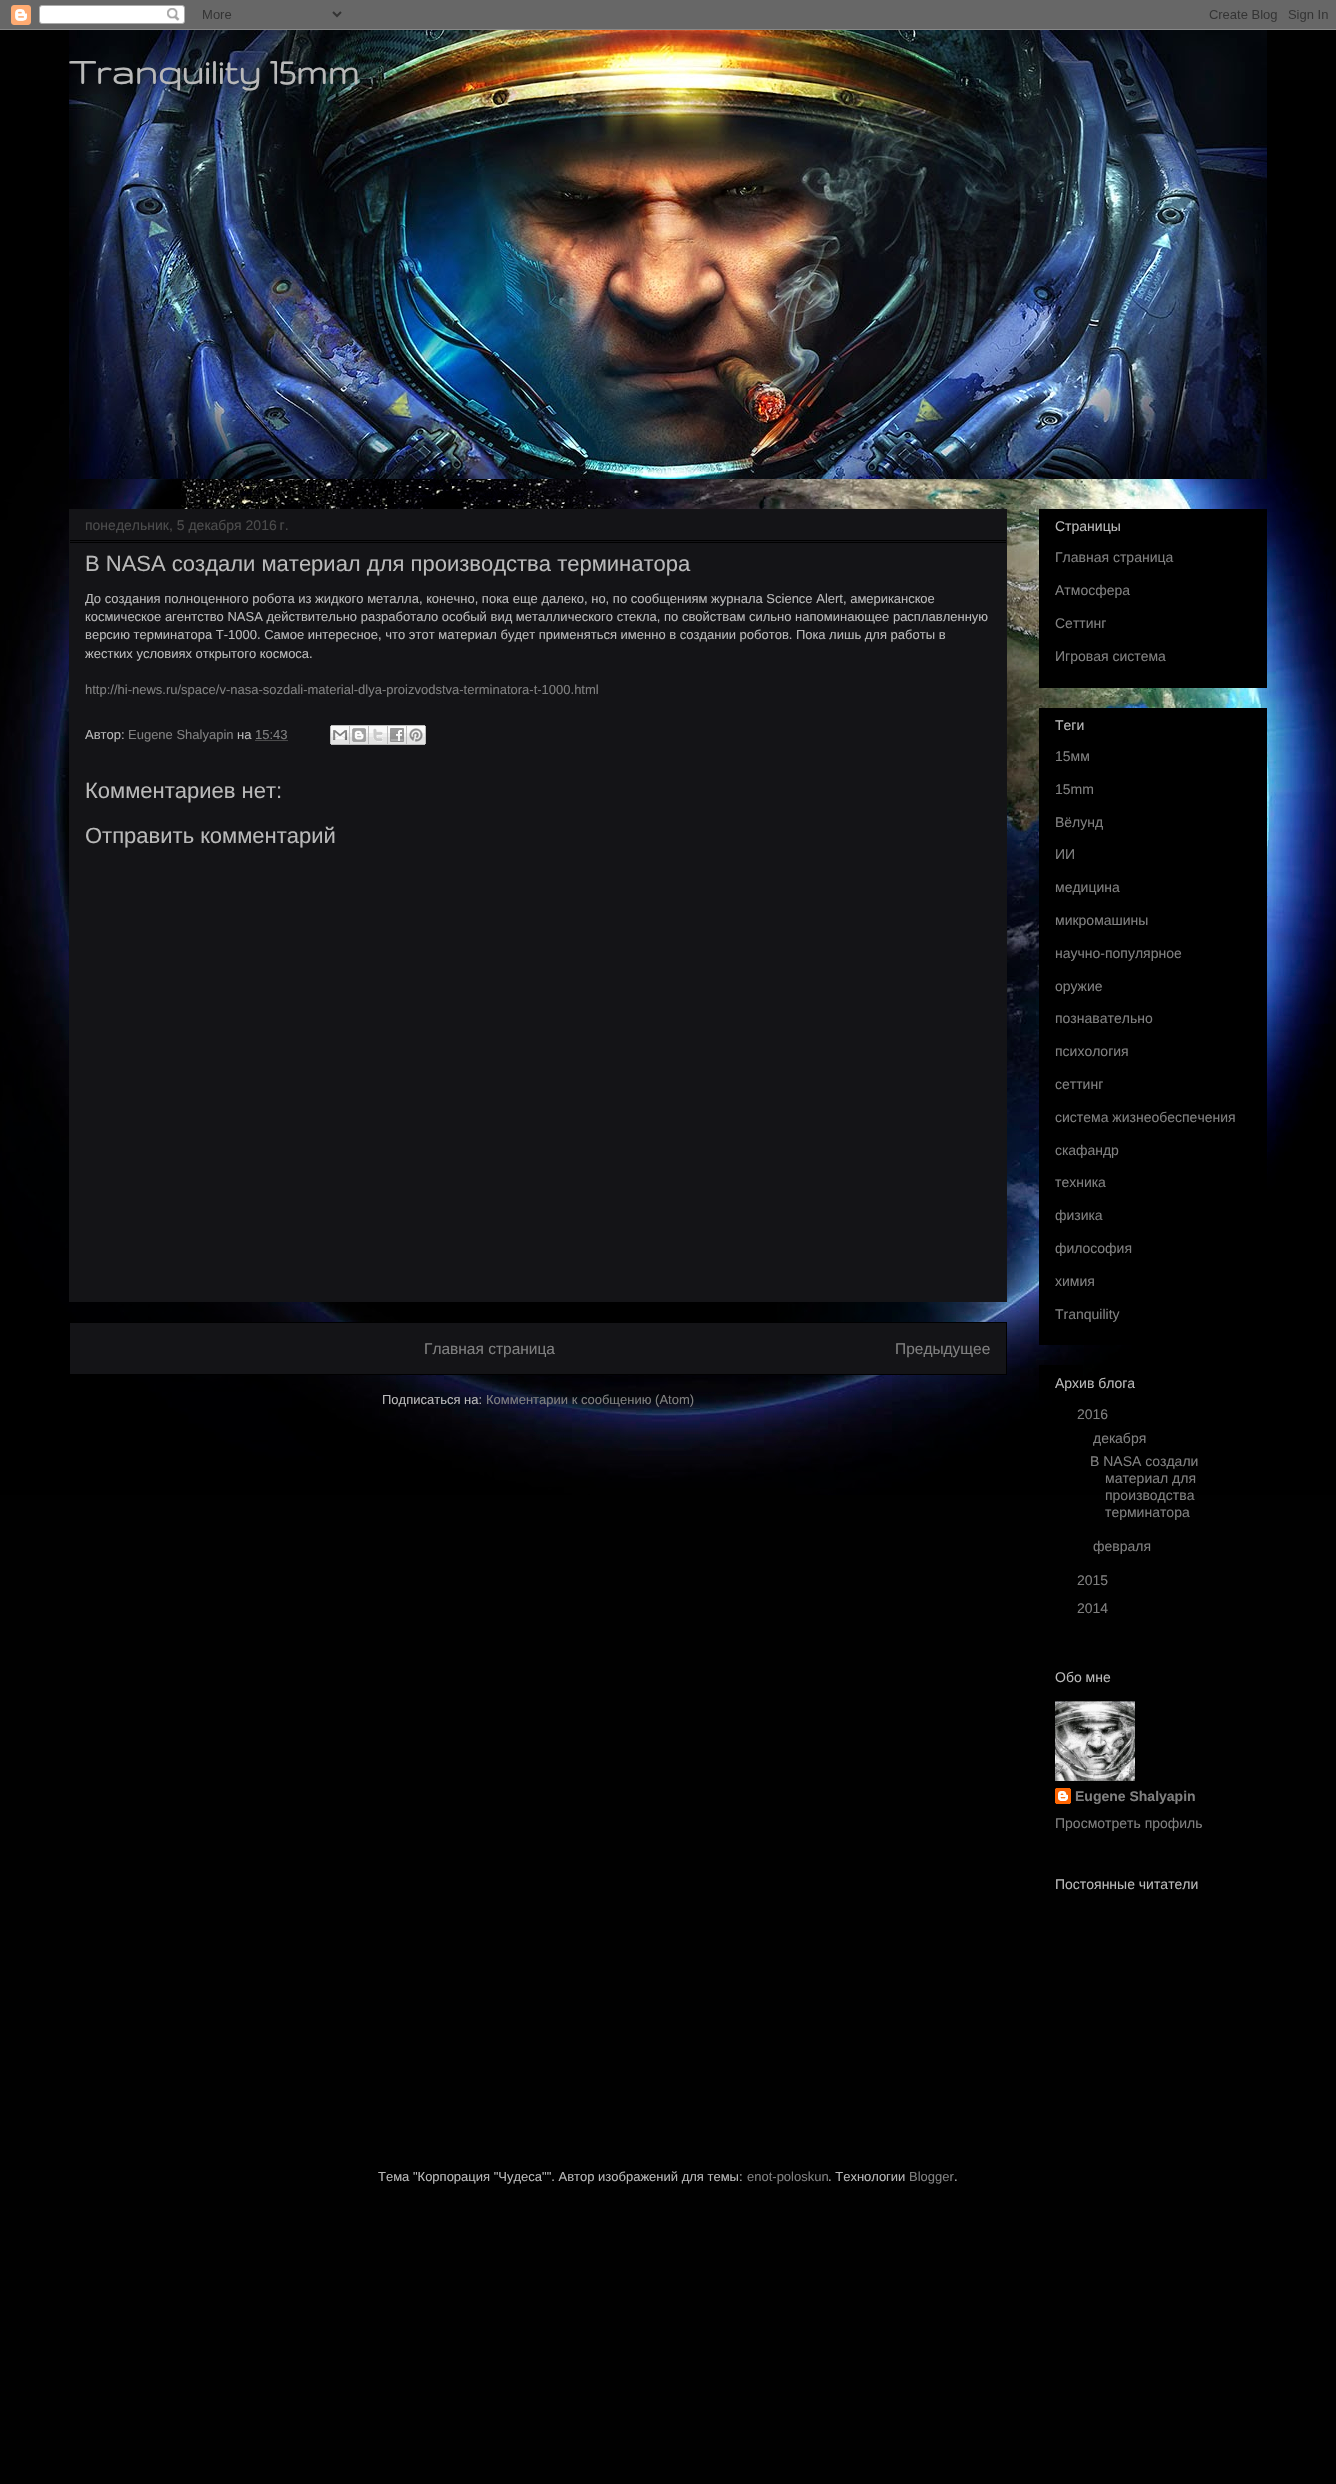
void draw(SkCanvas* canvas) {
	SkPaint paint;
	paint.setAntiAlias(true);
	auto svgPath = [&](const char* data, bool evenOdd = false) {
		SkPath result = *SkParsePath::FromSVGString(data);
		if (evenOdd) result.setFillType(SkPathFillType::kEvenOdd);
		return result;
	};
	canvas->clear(0xff010101);
	canvas->drawImageRect(SkImages::DeferredFromEncodedData(SkData::MakeFromFileName("img1.png")), SkRect::MakeXYWH(0, 80, 1336, 1415), SkSamplingOptions());
	canvas->drawImageRect(SkImages::DeferredFromEncodedData(SkData::MakeFromFileName("img2.png")), SkRect::MakeXYWH(0, 0, 1336, 30), SkSamplingOptions());
	canvas->drawImageRect(SkImages::DeferredFromEncodedData(SkData::MakeFromFileName("img3.png")), SkRect::MakeXYWH(69, 30, 1198, 449), SkSamplingOptions());
	SkFont f1(fontMgr->matchFamilyStyle("Gruppo", SkFontStyle::Bold()), 40);
	f1.setSubpixel(true);
	paint.setColor(0xffb9b9b9);
	canvas->drawString("Tranquility 15mm", 69, 84, f1, paint);
	paint.setColor(0xff141417);
	canvas->drawRect(SkRect::MakeXYWH(69, 509, 938, 793), paint);
	paint.setColor(0xff000000);
	canvas->drawRect(SkRect::MakeXYWH(70, 540, 936, 1), paint);
	SkFont f2(fontMgr->matchFamilyStyle("Liberation Sans", SkFontStyle::Normal()), 14);
	f2.setSubpixel(true);
	paint.setColor(0xff4b4b4b);
	canvas->drawString("понедельник, 5 декабря 2016 г.", 85, 530, f2, paint);
	paint.setColor(0xff000000);
	canvas->drawRect(SkRect::MakeXYWH(70, 542, 936, 1), paint);
	SkFont f3(fontMgr->matchFamilyStyle("Liberation Sans", SkFontStyle::Normal()), 22);
	f3.setSubpixel(true);
	paint.setColor(0xffb9b9b9);
	canvas->drawString("В NASA создали материал для производства терминатора", 85, 571, f3, paint);
	SkFont f4(fontMgr->matchFamilyStyle("Liberation Sans", SkFontStyle::Normal()), 13);
	f4.setSubpixel(true);
	canvas->drawString("До создания полноценного робота из жидкого металла, конечно, пока еще далеко, но, по сообщениям журнала Science Alert, американское", 85, 603, f4, paint);
	canvas->drawString("космическое агентство NASА действительно разработало особый вид металлического стекла, по свойствам сильно напоминающее расплавленную", 85, 621, f4, paint);
	canvas->drawString("версию терминатора Т-1000. Самое интересное, что этот материал будет применяться именно в создании роботов. Пока лишь для работы в", 85, 639, f4, paint);
	canvas->drawString("жестких условиях открытого космоса.", 85, 658, f4, paint);
	paint.setColor(0xff7f7f7f);
	canvas->drawString("http://hi-news.ru/space/v-nasa-sozdali-material-dlya-proizvodstva-terminatora-t-1000.html", 85, 694, f4, paint);
	paint.setColor(0xffb9b9b9);
	canvas->drawString("Автор:", 85, 739, f4, paint);
	paint.setColor(0xff7f7f7f);
	canvas->drawString("Eugene Shalyapin", 128, 739, f4, paint);
	paint.setColor(0xffb9b9b9);
	canvas->drawString("на", 237, 739, f4, paint);
	paint.setStroke(true);
	paint.setStrokeWidth(1);
	paint.setColor(0xff7f7f7f);
	paint.setPathEffect(SkDashPathEffect::Make({{1, 1}}, 0));
	canvas->drawPath(svgPath("M255.5 740.5H288"), paint);
	paint.setPathEffect(nullptr);
	paint.setStroke(false);
	canvas->drawString("15:43", 255, 739, f4, paint);
	canvas->drawImageRect(SkImages::DeferredFromEncodedData(SkData::MakeFromFileName("img4.png")), SkRect::MakeXYWH(330, 725, 20, 20), SkSamplingOptions());
	canvas->drawImageRect(SkImages::DeferredFromEncodedData(SkData::MakeFromFileName("img5.png")), SkRect::MakeXYWH(350, 725, 19, 20), SkSamplingOptions());
	canvas->drawImageRect(SkImages::DeferredFromEncodedData(SkData::MakeFromFileName("img6.png")), SkRect::MakeXYWH(369, 725, 19, 20), SkSamplingOptions());
	canvas->drawImageRect(SkImages::DeferredFromEncodedData(SkData::MakeFromFileName("img7.png")), SkRect::MakeXYWH(388, 725, 19, 20), SkSamplingOptions());
	canvas->drawImageRect(SkImages::DeferredFromEncodedData(SkData::MakeFromFileName("img8.png")), SkRect::MakeXYWH(407, 725, 19, 20), SkSamplingOptions());
	paint.setColor(0xffb9b9b9);
	canvas->drawString("Комментариев нет:", 85, 798, f3, paint);
	canvas->drawString("Отправить комментарий", 85, 843, f3, paint);
	paint.setColor(0xff141417);
	canvas->drawRect(SkRect::MakeXYWH(69.5, 1322.5, 937, 52), paint);
	paint.setStroke(true);
	paint.setColor(0xff000000);
	canvas->drawRect(SkRect::MakeXYWH(69.5, 1322.5, 937, 52), paint);
	SkFont f5(fontMgr->matchFamilyStyle("Liberation Sans", SkFontStyle::Normal()), 15.5);
	f5.setSubpixel(true);
	paint.setStroke(false);
	paint.setColor(0xff7f7f7f);
	canvas->drawString("Главная страница", 424, 1354, f5, paint);
	canvas->drawString("Предыдущее", 895, 1354, f5, paint);
	paint.setColor(0xffb9b9b9);
	canvas->drawString("Подписаться на:", 382, 1404, f4, paint);
	paint.setColor(0xff7f7f7f);
	canvas->drawString("Комментарии к сообщению (Atom)", 486, 1404, f4, paint);
	paint.setColor(0xff000000);
	canvas->drawRect(SkRect::MakeXYWH(1039, 509, 228, 179), paint);
	paint.setColor(0xffb9b9b9);
	canvas->drawString("Страницы", 1055, 531, f2, paint);
	paint.setColor(0xff7f7f7f);
	canvas->drawString("Главная страница", 1055, 562, f2, paint);
	canvas->drawString("Атмосфера", 1055, 595, f2, paint);
	canvas->drawString("Сеттинг", 1055, 628, f2, paint);
	canvas->drawString("Игровая система", 1055, 661, f2, paint);
	paint.setColor(0xff000000);
	canvas->drawRect(SkRect::MakeXYWH(1039, 708, 228, 637), paint);
	paint.setColor(0xffb9b9b9);
	canvas->drawString("Теги", 1055, 730, f2, paint);
	paint.setColor(0xff7f7f7f);
	canvas->drawString("15мм", 1055, 761, f2, paint);
	canvas->drawString("15mm", 1055, 794, f2, paint);
	canvas->drawString("Вёлунд", 1055, 827, f2, paint);
	canvas->drawString("ИИ", 1055, 859, f2, paint);
	canvas->drawString("медицина", 1055, 892, f2, paint);
	canvas->drawString("микромашины", 1055, 925, f2, paint);
	canvas->drawString("научно-популярное", 1055, 958, f2, paint);
	canvas->drawString("оружие", 1055, 991, f2, paint);
	canvas->drawString("познавательно", 1055, 1023, f2, paint);
	canvas->drawString("психология", 1055, 1056, f2, paint);
	canvas->drawString("сеттинг", 1055, 1089, f2, paint);
	canvas->drawString("система жизнеобеспечения", 1055, 1122, f2, paint);
	canvas->drawString("скафандр", 1055, 1155, f2, paint);
	canvas->drawString("техника", 1055, 1187, f2, paint);
	canvas->drawString("физика", 1055, 1220, f2, paint);
	canvas->drawString("философия", 1055, 1253, f2, paint);
	canvas->drawString("химия", 1055, 1286, f2, paint);
	canvas->drawString("Tranquility", 1055, 1319, f2, paint);
	paint.setColor(0xff000000);
	canvas->drawRect(SkRect::MakeXYWH(1039, 1365, 44, 35), paint);
	paint.setColor(0xffb9b9b9);
	canvas->drawString("Архив блога", 1055, 1388, f2, paint);
	paint.setColor(0xff7f7f7f);
	canvas->drawString("2016", 1077, 1419, f2, paint);
	canvas->drawString("декабря", 1093, 1443, f2, paint);
	canvas->drawString("В NASA создали", 1090, 1466, f2, paint);
	canvas->drawString("материал для", 1105, 1483, f2, paint);
	canvas->drawString("производства", 1105, 1500, f2, paint);
	canvas->drawString("терминатора", 1105, 1517, f2, paint);
	canvas->drawString("февраля", 1093, 1551, f2, paint);
	canvas->drawString("2015", 1077, 1585, f2, paint);
	canvas->drawString("2014", 1077, 1613, f2, paint);
	paint.setColor(0xffb9b9b9);
	canvas->drawString("Обо мне", 1055, 1682, f2, paint);
	canvas->drawImageRect(SkImages::DeferredFromEncodedData(SkData::MakeFromFileName("img9.png")), SkRect::MakeXYWH(1055, 1701, 80, 80), SkSamplingOptions());
	canvas->drawImageRect(SkImages::DeferredFromEncodedData(SkData::MakeFromFileName("img10.png")), SkRect::MakeXYWH(1055, 1788, 16, 16), SkSamplingOptions());
	SkFont f6(fontMgr->matchFamilyStyle("Liberation Sans", SkFontStyle::Bold()), 14);
	f6.setSubpixel(true);
	paint.setColor(0xff7f7f7f);
	canvas->drawString("Eugene Shalyapin", 1075, 1801, f6, paint);
	canvas->drawString("Просмотреть профиль", 1055, 1828, f2, paint);
	paint.setColor(0xffb9b9b9);
	canvas->drawString("Постоянные читатели", 1055, 1889, f2, paint);
	canvas->drawString("Тема \"Корпорация \"Чудеса\"\". Автор изображений для темы:", 378, 2181, f4, paint);
	paint.setColor(0xff7f7f7f);
	canvas->drawString("enot-poloskun", 747, 2181, f4, paint);
	paint.setColor(0xffb9b9b9);
	canvas->drawString(". Технологии", 828, 2181, f4, paint);
	paint.setColor(0xff7f7f7f);
	canvas->drawString("Blogger", 909, 2181, f4, paint);
	paint.setColor(0xffb9b9b9);
	canvas->drawString(".", 954, 2181, f4, paint);
}
